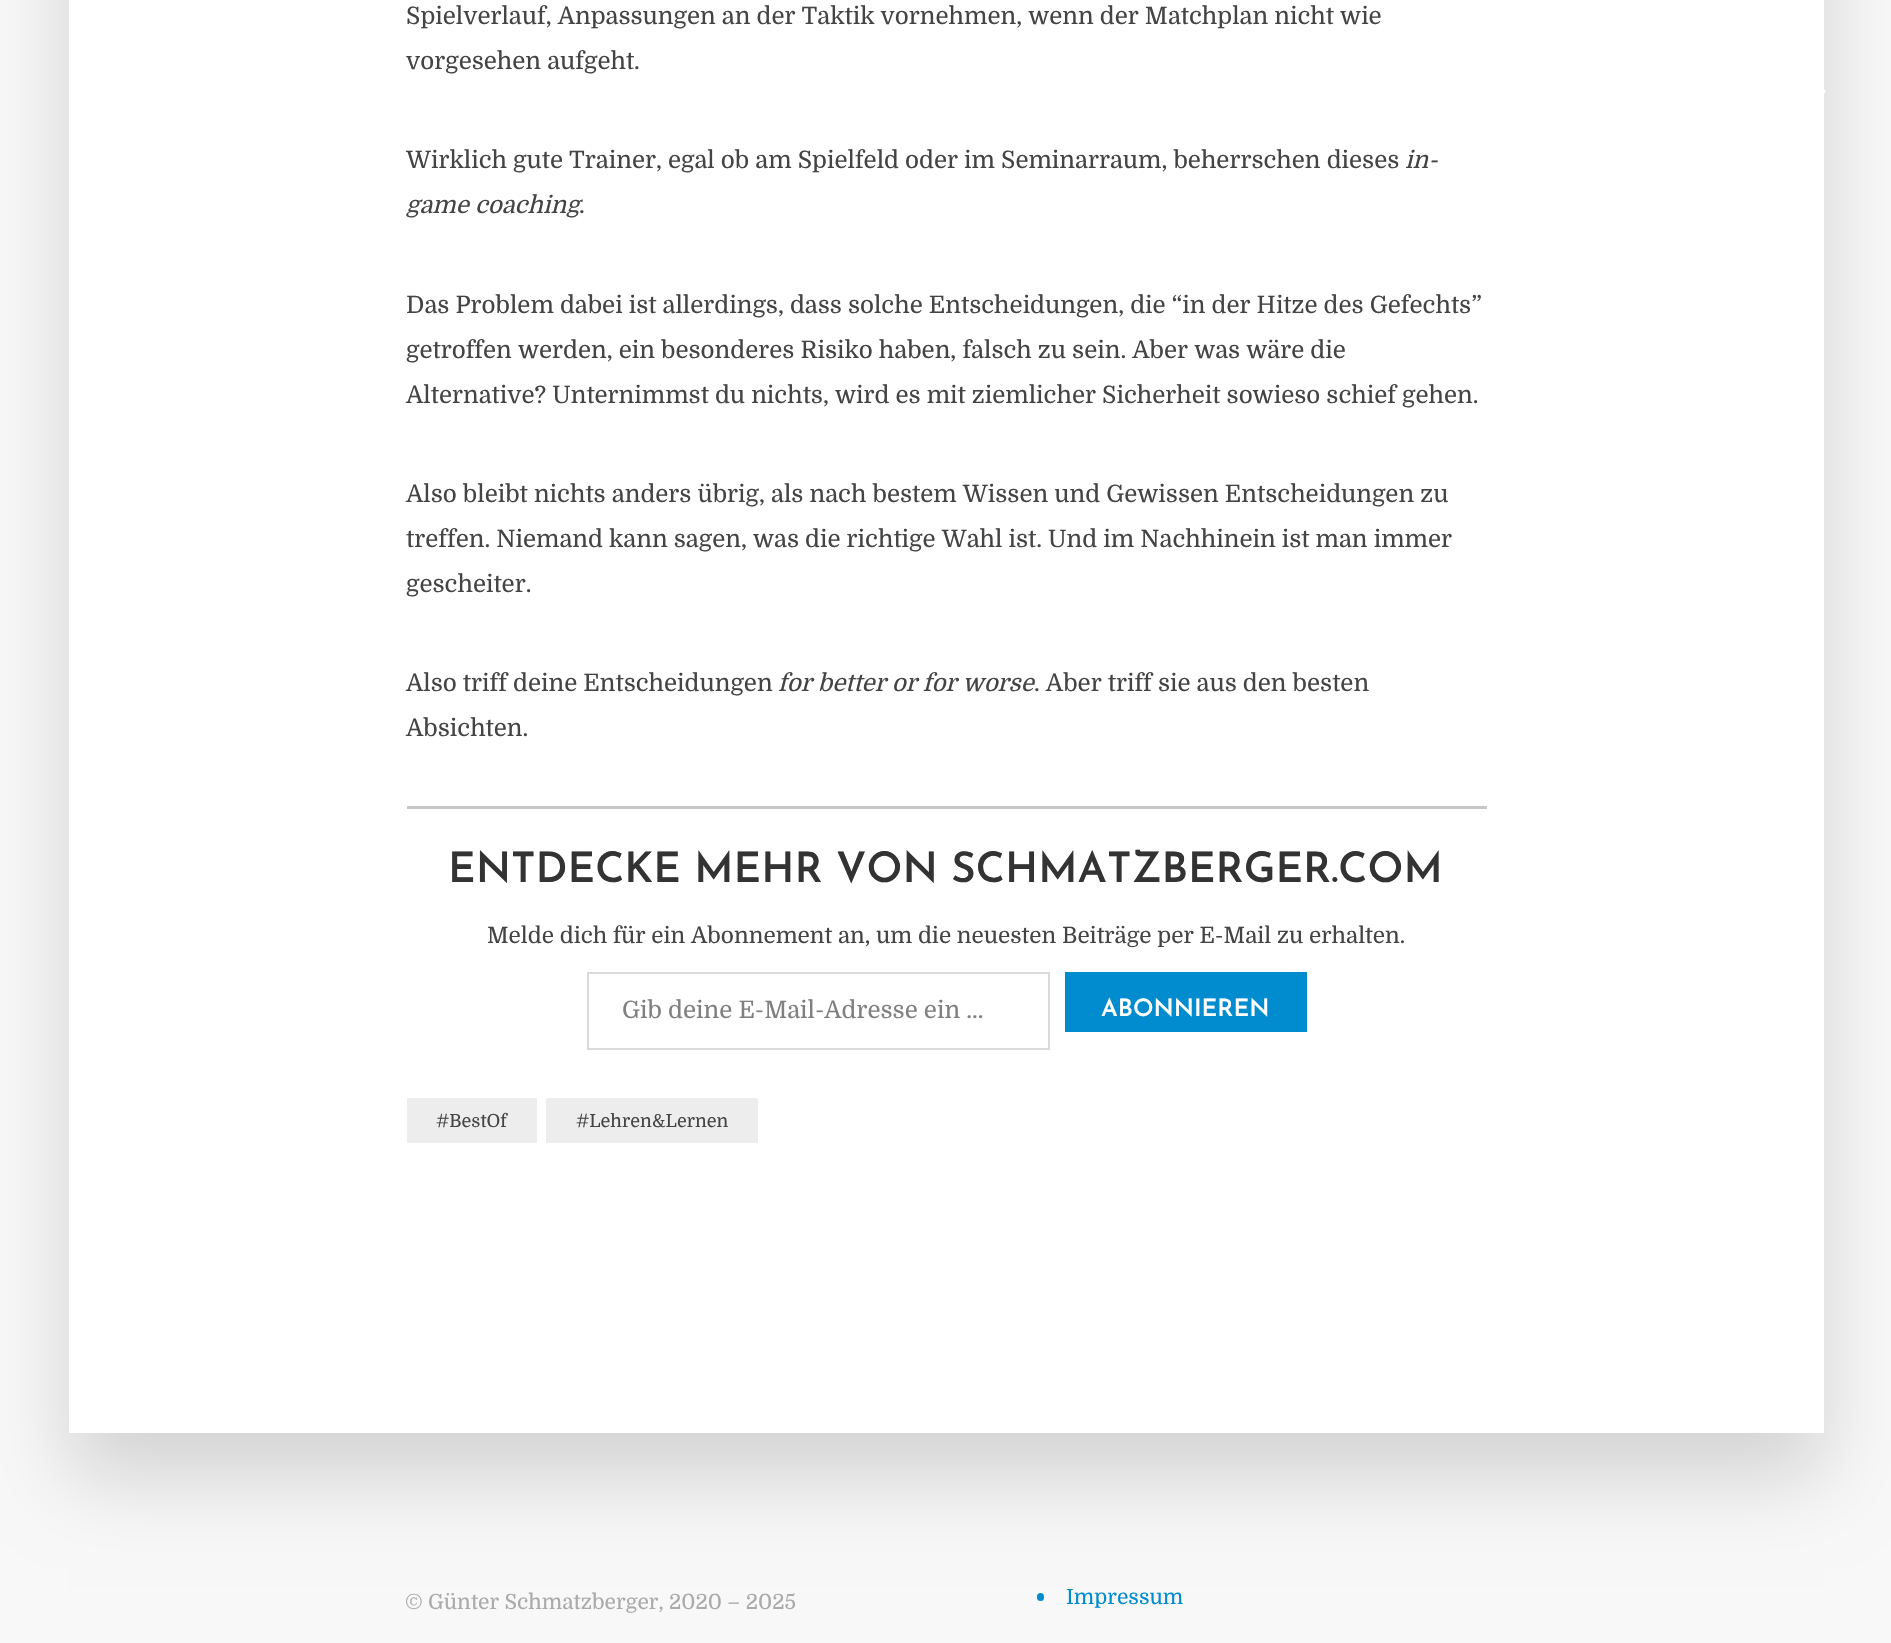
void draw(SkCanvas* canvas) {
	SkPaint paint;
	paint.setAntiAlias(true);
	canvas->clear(0xfff8f8f8);
	paint.setColor(0x26010101);
	paint.setMaskFilter(SkMaskFilter::MakeBlur(kNormal_SkBlurStyle, 37.5));
	canvas->drawRect(SkRect::MakeXYWH(69, -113, 1755, 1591), paint);
	paint.setMaskFilter(nullptr);
	paint.setColor(0xffffffff);
	canvas->drawRect(SkRect::MakeXYWH(69, 0, 1755, 1433), paint);
	SkFont f1(fontMgr->matchFamilyStyle("Domine", SkFontStyle::Normal()), 24);
	f1.setSubpixel(true);
	paint.setColor(0xff444444);
	canvas->drawString("Spielverlauf, Anpassungen an der Taktik vornehmen, wenn der Matchplan nicht wie", 406, 24, f1, paint);
	canvas->drawString("vorgesehen aufgeht.", 406, 69, f1, paint);
	canvas->drawString("Wirklich gute Trainer, egal ob am Spielfeld oder im Seminarraum, beherrschen dieses", 406, 168, f1, paint);
	SkFont f2(fontMgr->matchFamilyStyle("Domine", SkFontStyle::Italic()), 24);
	f2.setSubpixel(true);
	canvas->drawString("in-", 1405, 168, f2, paint);
	canvas->drawString("game coaching", 406, 213, f2, paint);
	canvas->drawString(".", 579, 213, f1, paint);
	canvas->drawString("Das Problem dabei ist allerdings, dass solche Entscheidungen, die “in der Hitze des Gefechts”", 406, 313, f1, paint);
	canvas->drawString("getroffen werden, ein besonderes Risiko haben, falsch zu sein. Aber was wäre die", 406, 358, f1, paint);
	canvas->drawString("Alternative? Unternimmst du nichts, wird es mit ziemlicher Sicherheit sowieso schief gehen.", 406, 403, f1, paint);
	canvas->drawString("Also bleibt nichts anders übrig, als nach bestem Wissen und Gewissen Entscheidungen zu", 406, 502, f1, paint);
	canvas->drawString("treffen. Niemand kann sagen, was die richtige Wahl ist. Und im Nachhinein ist man immer", 406, 547, f1, paint);
	canvas->drawString("gescheiter.", 406, 592, f1, paint);
	canvas->drawString("Also triff deine Entscheidungen", 406, 691, f1, paint);
	canvas->drawString("for better or for worse", 778, 691, f2, paint);
	canvas->drawString(". Aber triff sie aus den besten", 1034, 691, f1, paint);
	canvas->drawString("Absichten.", 406, 736, f1, paint);
	paint.setColor(0xffc7c7c7);
	canvas->drawRect(SkRect::MakeXYWH(407, 806, 1080, 3), paint);
	SkFont f3(fontMgr->matchFamilyStyle("Josefin Sans", SkFontStyle(100, SkFontStyle::kNormal_Width, SkFontStyle::kUpright_Slant)), 42);
	f3.setSubpixel(true);
	paint.setColor(0xff333333);
	canvas->drawString("ENTDECKE MEHR VON SCHMATZBERGER.COM", 448, 882, f3, paint);
	SkFont f4(fontMgr->matchFamilyStyle("Domine", SkFontStyle::Normal()), 22.5);
	f4.setSubpixel(true);
	paint.setColor(0xff444444);
	canvas->drawString("Melde dich für ein Abonnement an, um die neuesten Beiträge per E-Mail zu erhalten.", 487, 943, f4, paint);
	paint.setStroke(true);
	paint.setStrokeWidth(2);
	paint.setColor(0xffdadada);
	canvas->drawRect(SkRect::MakeXYWH(588, 973, 461, 76), paint);
	paint.setStroke(false);
	paint.setColor(0xff808080);
	canvas->drawString("Gib deine E-Mail-Adresse ein ...", 622, 1018, f1, paint);
	paint.setColor(0xff008ccf);
	canvas->drawRect(SkRect::MakeXYWH(1065, 972, 242, 60), paint);
	SkFont f5(fontMgr->matchFamilyStyle("Josefin Sans", SkFontStyle(100, SkFontStyle::kNormal_Width, SkFontStyle::kUpright_Slant)), 24);
	f5.setSubpixel(true);
	paint.setColor(0xffffffff);
	canvas->drawString("ABONNIEREN", 1101, 1016, f5, paint);
	paint.setColor(0xffededed);
	canvas->drawRect(SkRect::MakeXYWH(407, 1098, 130, 45), paint);
	SkFont f6(fontMgr->matchFamilyStyle("Domine", SkFontStyle::Normal()), 18);
	f6.setSubpixel(true);
	paint.setColor(0xff444444);
	canvas->drawString("#BestOf", 436, 1127, f6, paint);
	paint.setColor(0xffededed);
	canvas->drawRect(SkRect::MakeXYWH(546, 1098, 212, 45), paint);
	paint.setColor(0xff444444);
	canvas->drawString("#Lehren&Lernen", 576, 1127, f6, paint);
	SkFont f7(fontMgr->matchFamilyStyle("Domine", SkFontStyle::Normal()), 21);
	f7.setSubpixel(true);
	paint.setColor(0xffaaaaaa);
	canvas->drawString("© Günter Schmatzberger, 2020 – 2025", 405, 1609, f7, paint);
	paint.setColor(0xff008ccf);
	canvas->drawRoundRect(SkRect::MakeXYWH(1037, 1593, 7, 8), 3.5, 3.5, paint);
	canvas->drawString("Impressum", 1066, 1604, f7, paint);
	canvas->drawImageRect(SkImages::DeferredFromEncodedData(SkData::MakeFromFileName("img1.png")), SkRect::MakeXYWH(1824, 89, 2, 4), SkSamplingOptions());
}
